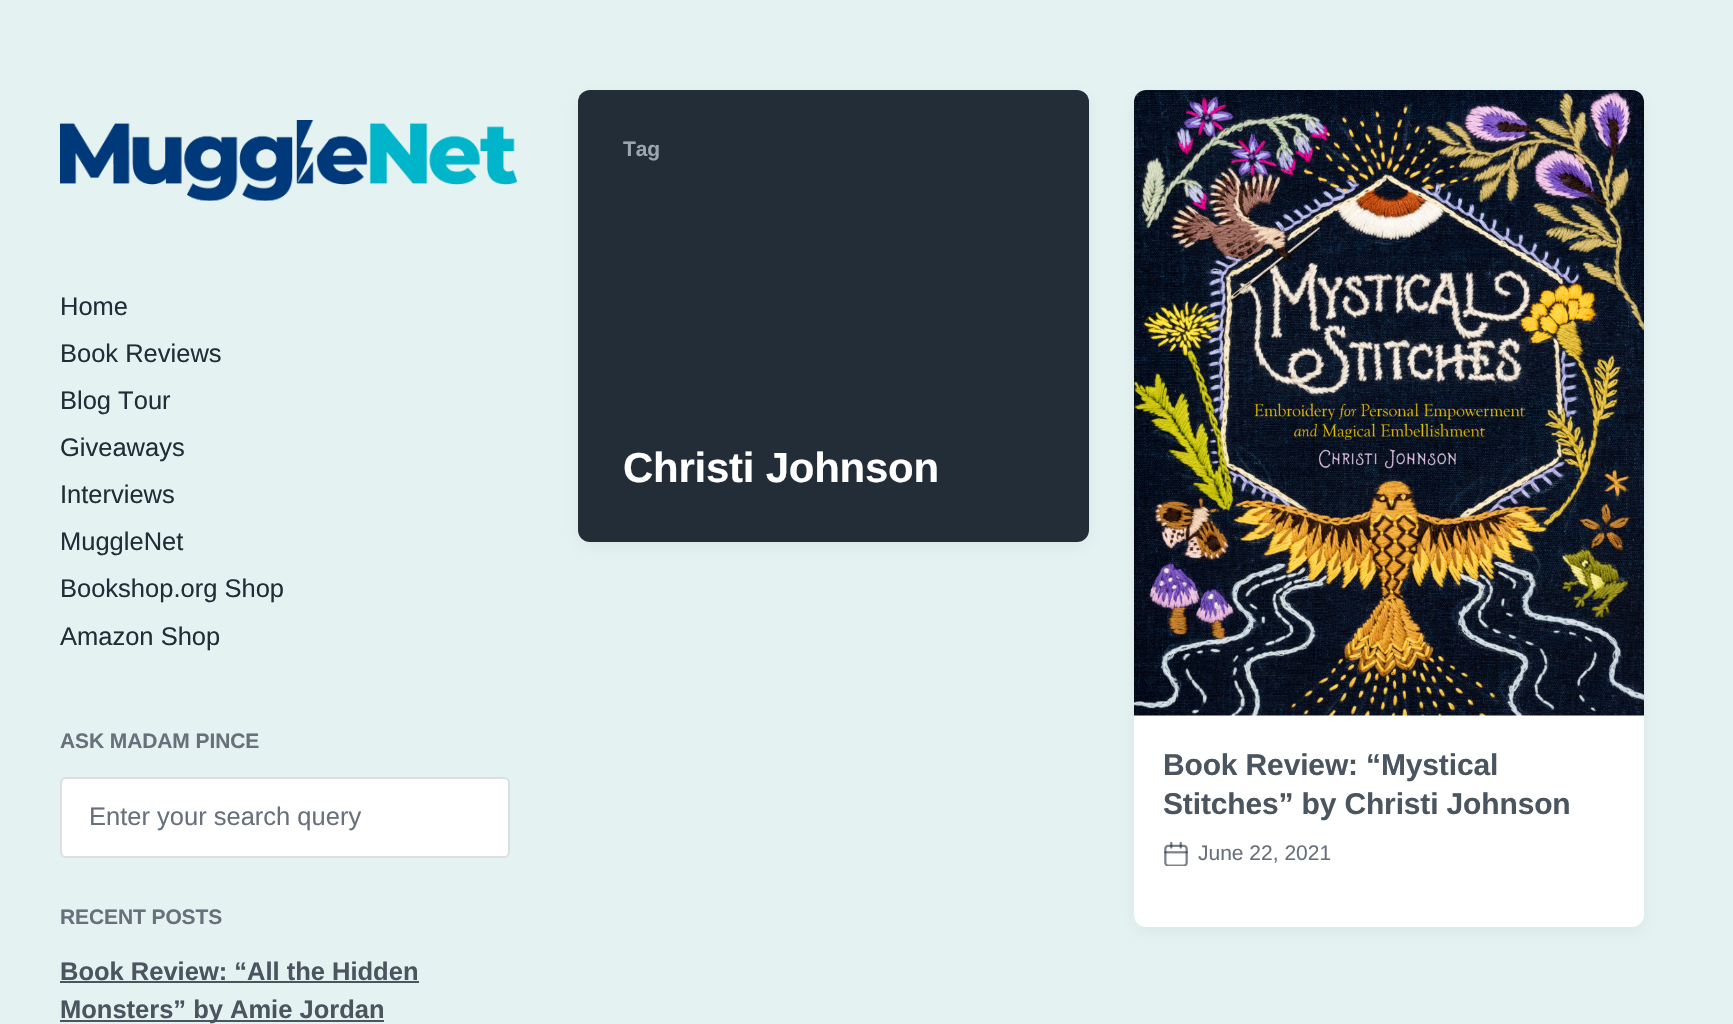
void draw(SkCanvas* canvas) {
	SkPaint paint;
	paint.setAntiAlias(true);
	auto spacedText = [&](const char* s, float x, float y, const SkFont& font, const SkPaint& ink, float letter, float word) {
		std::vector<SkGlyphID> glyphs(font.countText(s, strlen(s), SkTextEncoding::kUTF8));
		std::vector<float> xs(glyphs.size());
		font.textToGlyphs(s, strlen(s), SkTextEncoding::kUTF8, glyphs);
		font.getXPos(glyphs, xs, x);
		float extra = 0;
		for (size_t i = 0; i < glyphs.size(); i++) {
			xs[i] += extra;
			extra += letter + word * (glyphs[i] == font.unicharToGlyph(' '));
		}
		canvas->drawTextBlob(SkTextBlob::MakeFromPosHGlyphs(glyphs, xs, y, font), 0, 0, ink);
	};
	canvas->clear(0xffe5f2f2);
	canvas->drawImageRect(SkImages::DeferredFromEncodedData(SkData::MakeFromFileName("img1.png")), SkRect::MakeXYWH(60, 120, 457, 81), SkSamplingOptions());
	SkFont f1(fontMgr->matchFamilyStyle("Liberation Sans", SkFontStyle::Normal()), 25.5);
	f1.setSubpixel(true);
	paint.setColor(0xff232d37);
	canvas->drawString("Home", 60, 315, f1, paint);
	canvas->drawString("Book Reviews", 60, 362, f1, paint);
	canvas->drawString("Blog Tour", 60, 409, f1, paint);
	canvas->drawString("Giveaways", 60, 456, f1, paint);
	canvas->drawString("Interviews", 60, 503, f1, paint);
	canvas->drawString("MuggleNet", 60, 550, f1, paint);
	canvas->drawString("Bookshop.org Shop", 60, 597, f1, paint);
	canvas->drawString("Amazon Shop", 60, 645, f1, paint);
	SkFont f2(fontMgr->matchFamilyStyle("Liberation Sans", SkFontStyle::Bold()), 21);
	f2.setSubpixel(true);
	paint.setColor(0xff68717b);
	spacedText("ASK MADAM PINCE", 60, 748, f2, paint, -0.1, 0);
	paint.setColor(0xffffffff);
	canvas->drawRoundRect(SkRect::MakeXYWH(61, 778, 448, 79), 5, 5, paint);
	paint.setStroke(true);
	paint.setStrokeWidth(2);
	paint.setColor(0xffdcdfe2);
	canvas->drawRoundRect(SkRect::MakeXYWH(61, 778, 448, 79), 5, 5, paint);
	paint.setStroke(false);
	paint.setColor(0xff68717b);
	canvas->drawString("Enter your search query", 89, 825, f1, paint);
	spacedText("RECENT POSTS", 60, 924, f2, paint, -0.1, 0);
	SkFont f3(fontMgr->matchFamilyStyle("Liberation Sans", SkFontStyle::Bold()), 25.5);
	f3.setSubpixel(true);
	paint.setColor(0xff4b555f);
	canvas->drawString("Book Review: “All the Hidden", 60, 980, f3, paint);
	canvas->drawRect(SkRect::MakeXYWH(60, 981, 359, 2), paint);
	canvas->drawRect(SkRect::MakeXYWH(60, 1020, 324, 2), paint);
	canvas->drawString("Monsters” by Amie Jordan", 60, 1018, f3, paint);
	paint.setColor(0x0d050a0f);
	paint.setMaskFilter(SkMaskFilter::MakeBlur(kNormal_SkBlurStyle, 9));
	canvas->drawRoundRect(SkRect::MakeXYWH(578, 95, 511, 451), 12, 12, paint);
	paint.setMaskFilter(nullptr);
	paint.setColor(0xff232d37);
	canvas->drawRoundRect(SkRect::MakeXYWH(578, 90, 511, 452), 12, 12, paint);
	paint.setColor(0xff9ba5af);
	spacedText("Tag", 623, 156, f2, paint, -0.1, 0);
	SkFont f4(fontMgr->matchFamilyStyle("Liberation Sans", SkFontStyle::Bold()), 42);
	f4.setSubpixel(true);
	paint.setColor(0xffffffff);
	spacedText("Christi Johnson", 623, 482, f4, paint, -0.25, 0);
	paint.setColor(0x0d050a0f);
	paint.setMaskFilter(SkMaskFilter::MakeBlur(kNormal_SkBlurStyle, 9));
	canvas->drawRoundRect(SkRect::MakeXYWH(1134, 95, 510, 837), 12, 12, paint);
	paint.setMaskFilter(nullptr);
	paint.setColor(0xffffffff);
	canvas->drawRoundRect(SkRect::MakeXYWH(1134, 90, 510, 837), 12, 12, paint);
	canvas->drawImageRect(SkImages::DeferredFromEncodedData(SkData::MakeFromFileName("img2.png")), SkRect::MakeXYWH(1134, 90, 510, 626), SkSamplingOptions());
	SkFont f5(fontMgr->matchFamilyStyle("Liberation Sans", SkFontStyle::Bold()), 30);
	f5.setSubpixel(true);
	paint.setColor(0xff4b555f);
	spacedText("Book Review: “Mystical", 1163, 775, f5, paint, -0.15, 0);
	spacedText("Stitches” by Christi Johnson", 1163, 814, f5, paint, -0.15, 0);
	canvas->drawImageRect(SkImages::DeferredFromEncodedData(SkData::MakeFromFileName("img3.png")), SkRect::MakeXYWH(1164, 842, 24, 24), SkSamplingOptions());
	SkFont f6(fontMgr->matchFamilyStyle("Liberation Sans", SkFontStyle::Normal()), 21);
	f6.setSubpixel(true);
	paint.setColor(0xff68717b);
	canvas->drawString("June 22, 2021", 1198, 860, f6, paint);
}
